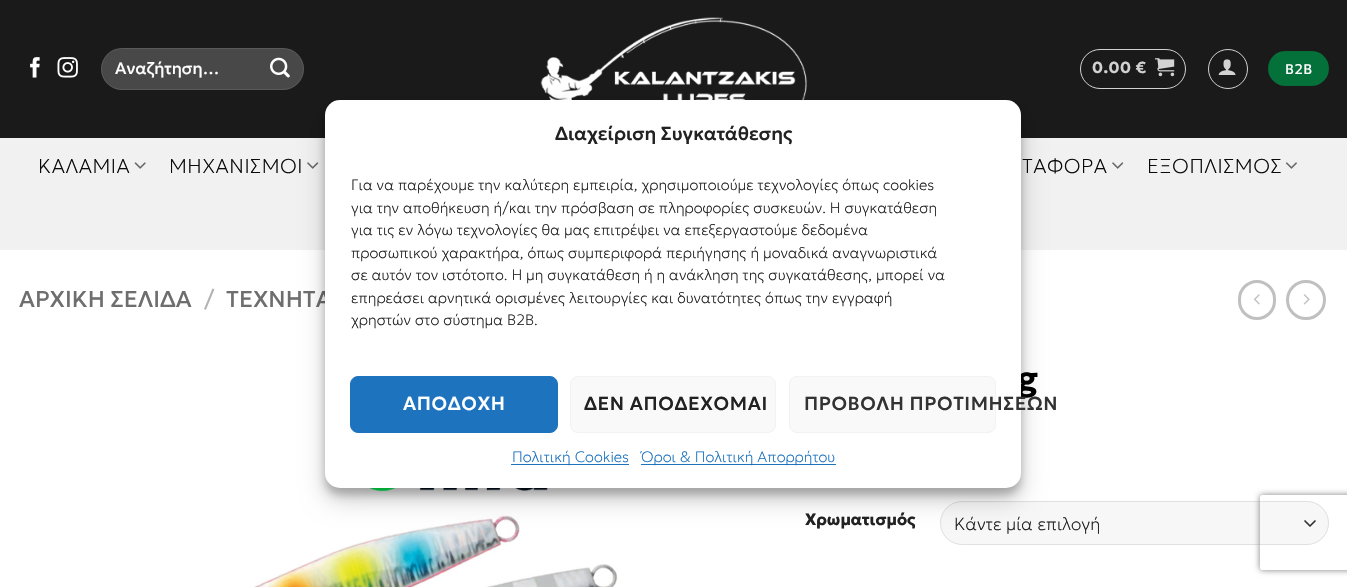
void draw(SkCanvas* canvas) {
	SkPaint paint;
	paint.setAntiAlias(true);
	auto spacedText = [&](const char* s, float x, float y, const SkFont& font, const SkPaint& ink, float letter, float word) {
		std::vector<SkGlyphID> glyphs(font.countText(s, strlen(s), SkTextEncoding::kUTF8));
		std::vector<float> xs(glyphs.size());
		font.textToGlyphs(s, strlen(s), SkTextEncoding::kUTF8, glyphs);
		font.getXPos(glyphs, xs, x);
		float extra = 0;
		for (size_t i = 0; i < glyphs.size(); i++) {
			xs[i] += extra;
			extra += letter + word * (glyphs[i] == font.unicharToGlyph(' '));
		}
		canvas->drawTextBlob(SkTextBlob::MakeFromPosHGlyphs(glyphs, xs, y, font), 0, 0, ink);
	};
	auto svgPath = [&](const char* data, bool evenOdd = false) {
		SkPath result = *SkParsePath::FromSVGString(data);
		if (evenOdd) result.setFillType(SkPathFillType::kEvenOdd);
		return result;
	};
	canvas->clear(0xffffffff);
	paint.setColor(0xff1a1a1a);
	canvas->drawRect(SkRect::MakeXYWH(0, 0, 1347, 138), paint);
	canvas->drawImageRect(SkImages::DeferredFromEncodedData(SkData::MakeFromFileName("img1.png")), SkRect::MakeXYWH(30, 57, 10, 21), SkSamplingOptions());
	canvas->drawImageRect(SkImages::DeferredFromEncodedData(SkData::MakeFromFileName("img2.png")), SkRect::MakeXYWH(57, 57, 21, 21), SkSamplingOptions());
	paint.setColor(0xff484848);
	canvas->drawRoundRect(SkRect::MakeXYWH(101, 48, 203, 42), 21, 21, paint);
	paint.setStroke(true);
	paint.setStrokeWidth(1);
	paint.setColor(0x17ffffff);
	canvas->drawRoundRect(SkRect::MakeXYWH(101.5, 48.5, 202, 41), 20.5, 20.5, paint);
	SkFont f1(fontMgr->matchFamilyStyle("Geologica", SkFontStyle::Normal()), 16.5);
	f1.setSubpixel(true);
	paint.setStroke(false);
	paint.setColor(0xffffffff);
	canvas->drawString("Αναζήτηση…", 115, 74, f1, paint);
	canvas->drawImageRect(SkImages::DeferredFromEncodedData(SkData::MakeFromFileName("img3.png")), SkRect::MakeXYWH(270, 57, 20, 21), SkSamplingOptions());
	canvas->drawImageRect(SkImages::DeferredFromEncodedData(SkData::MakeFromFileName("img4.png")), SkRect::MakeXYWH(540, 17, 267, 83), SkSamplingOptions());
	paint.setStroke(true);
	paint.setColor(0xffd1d1d1);
	canvas->drawRoundRect(SkRect::MakeXYWH(1080.5, 49.5, 105, 39), 19.5, 19.5, paint);
	SkFont f2(fontMgr->matchFamilyStyle("Geologica", SkFontStyle::Bold()), 16);
	f2.setSubpixel(true);
	paint.setStroke(false);
	spacedText("0.00 €", 1092, 73, f2, paint, 0.5, 0);
	canvas->drawImageRect(SkImages::DeferredFromEncodedData(SkData::MakeFromFileName("img5.png")), SkRect::MakeXYWH(1155, 58, 20, 19), SkSamplingOptions());
	paint.setStroke(true);
	canvas->drawCircle(1228, 69, 19.5, paint);
	canvas->drawImageRect(SkImages::DeferredFromEncodedData(SkData::MakeFromFileName("img6.png")), SkRect::MakeXYWH(1218, 59, 18, 16), SkSamplingOptions());
	paint.setStroke(false);
	paint.setColor(0xff05713a);
	canvas->drawRoundRect(SkRect::MakeXYWH(1268, 51, 61, 35), 17.5, 17.5, paint);
	paint.setStroke(true);
	paint.setColor(0x0d000000);
	canvas->drawRect(SkRect::MakeXYWH(1268.5, 51.5, 60, 34), paint);
	SkFont f3(fontMgr->matchFamilyStyle("Geologica", SkFontStyle::Normal()), 14);
	f3.setSubpixel(true);
	paint.setStroke(false);
	paint.setColor(0xffffffff);
	spacedText("B2B", 1285, 74, f3, paint, 0.5, 0);
	paint.setColor(0xfff1f1f1);
	canvas->drawRect(SkRect::MakeXYWH(0, 138, 1347, 112), paint);
	SkFont f4(fontMgr->matchFamilyStyle("Geologica", SkFontStyle(100, SkFontStyle::kNormal_Width, SkFontStyle::kUpright_Slant)), 20);
	f4.setSubpixel(true);
	paint.setColor(0xff0a0a0a);
	spacedText("ΚΑΛΑΜΙΑ", 38, 173, f4, paint, 0.5, 0);
	canvas->drawImageRect(SkImages::DeferredFromEncodedData(SkData::MakeFromFileName("img7.png")), SkRect::MakeXYWH(134, 162, 12, 7), SkSamplingOptions());
	spacedText("ΜΗΧΑΝΙΣΜΟΙ", 169, 173, f4, paint, 0.5, 0);
	canvas->drawImageRect(SkImages::DeferredFromEncodedData(SkData::MakeFromFileName("img8.png")), SkRect::MakeXYWH(307, 162, 12, 7), SkSamplingOptions());
	spacedText("ΤΑΦΟΡΑ", 1022, 173, f4, paint, 0.5, 0);
	canvas->drawImageRect(SkImages::DeferredFromEncodedData(SkData::MakeFromFileName("img8.png")), SkRect::MakeXYWH(1112, 162, 12, 7), SkSamplingOptions());
	spacedText("ΕΞΟΠΛΙΣΜΟΣ", 1147, 173, f4, paint, 0.5, 0);
	canvas->drawImageRect(SkImages::DeferredFromEncodedData(SkData::MakeFromFileName("img9.png")), SkRect::MakeXYWH(1285, 162, 12, 7), SkSamplingOptions());
	SkFont f5(fontMgr->matchFamilyStyle("Geologica", SkFontStyle::Normal()), 23);
	f5.setSubpixel(true);
	paint.setColor(0xff6e6e6e);
	canvas->drawString("ΑΡΧΙΚΗ ΣΕΛΙΔΑ", 19, 307, f5, paint);
	SkFont f6(fontMgr->matchFamilyStyle("Geologica", SkFontStyle(300, SkFontStyle::kNormal_Width, SkFontStyle::kUpright_Slant)), 23);
	f6.setSubpixel(true);
	paint.setColor(0xffb2b2b2);
	canvas->drawString("/", 204, 307, f6, paint);
	paint.setColor(0xff6e6e6e);
	canvas->drawString("ΤΕΧΝΗΤΑ", 226, 307, f5, paint);
	paint.setStroke(true);
	paint.setStrokeWidth(3);
	paint.setColor(0xffc0c0c0);
	canvas->drawRoundRect(SkRect::MakeXYWH(1239.5, 281.5, 35, 37), 17.5, 17.5, paint);
	canvas->drawImageRect(SkImages::DeferredFromEncodedData(SkData::MakeFromFileName("img10.png")), SkRect::MakeXYWH(1253, 294, 7, 11), SkSamplingOptions());
	canvas->drawCircle(1306, 300, 18.5, paint);
	canvas->drawImageRect(SkImages::DeferredFromEncodedData(SkData::MakeFromFileName("img11.png")), SkRect::MakeXYWH(1303, 294, 7, 11), SkSamplingOptions());
	canvas->drawImageRect(SkImages::DeferredFromEncodedData(SkData::MakeFromFileName("img12.png")), SkRect::MakeXYWH(254, 421, 364, 166), SkSamplingOptions());
	SkFont f7(fontMgr->matchFamilyStyle("Geologica", SkFontStyle::Bold()), 34);
	f7.setSubpixel(true);
	paint.setStroke(false);
	paint.setColor(0xff000000);
	canvas->drawString("g", 1017, 390, f7, paint);
	SkFont f8(fontMgr->matchFamilyStyle("Geologica", SkFontStyle::Bold()), 16.25);
	f8.setSubpixel(true);
	paint.setColor(0xff222222);
	canvas->drawString("Χρωματισμός", 805, 525, f8, paint);
	paint.setColor(0xfff7f7f7);
	canvas->drawRoundRect(SkRect::MakeXYWH(940, 501, 389, 44), 22, 22, paint);
	paint.setStroke(true);
	paint.setStrokeWidth(1.7);
	paint.setStrokeCap(SkPaint::kRound_Cap);
	paint.setStrokeJoin(SkPaint::kRound_Join);
	paint.setColor(0xff333333);
	canvas->drawPath(svgPath("M1305 521L1310 526L1315 521"), paint);
	paint.setStrokeWidth(1);
	paint.setStrokeCap(SkPaint::kButt_Cap);
	paint.setStrokeJoin(SkPaint::kMiter_Join);
	paint.setColor(0x17000000);
	canvas->drawRoundRect(SkRect::MakeXYWH(940.5, 501.5, 388, 43), 21.5, 21.5, paint);
	SkFont f9(fontMgr->matchFamilyStyle("Geologica", SkFontStyle(100, SkFontStyle::kNormal_Width, SkFontStyle::kUpright_Slant)), 17.5);
	f9.setSubpixel(true);
	paint.setStroke(false);
	paint.setColor(0xff222222);
	canvas->drawString("Κάντε μία επιλογή", 954, 530, f9, paint);
	paint.setColor(0x3b000000);
	paint.setMaskFilter(SkMaskFilter::MakeBlur(kNormal_SkBlurStyle, 4));
	canvas->drawRoundRect(SkRect::MakeXYWH(325, 108, 696, 387), 15, 15, paint);
	paint.setMaskFilter(nullptr);
	paint.setColor(0x30000000);
	paint.setMaskFilter(SkMaskFilter::MakeBlur(kNormal_SkBlurStyle, 12.5));
	canvas->drawRoundRect(SkRect::MakeXYWH(325, 113, 696, 387), 15, 15, paint);
	paint.setMaskFilter(nullptr);
	paint.setColor(0xffffffff);
	canvas->drawRoundRect(SkRect::MakeXYWH(325, 100, 696, 388), 15, 15, paint);
	SkFont f10(fontMgr->matchFamilyStyle("Geologica", SkFontStyle(500, SkFontStyle::kNormal_Width, SkFontStyle::kUpright_Slant)), 18.75);
	f10.setSubpixel(true);
	paint.setColor(0xff222222);
	canvas->drawString("Διαχείριση Συγκατάθεσης", 555, 140, f10, paint);
	SkFont f11(fontMgr->matchFamilyStyle("Geologica", SkFontStyle(100, SkFontStyle::kNormal_Width, SkFontStyle::kUpright_Slant)), 15);
	f11.setSubpixel(true);
	canvas->drawString("Για να παρέχουμε την καλύτερη εμπειρία, χρησιμοποιούμε τεχνολογίες όπως cookies", 351, 190, f11, paint);
	canvas->drawString("για την αποθήκευση ή/και την πρόσβαση σε πληροφορίες συσκευών. Η συγκατάθεση", 351, 213, f11, paint);
	canvas->drawString("για τις εν λόγω τεχνολογίες θα μας επιτρέψει να επεξεργαστούμε δεδομένα", 351, 235, f11, paint);
	canvas->drawString("προσωπικού χαρακτήρα, όπως συμπεριφορά περιήγησης ή μοναδικά αναγνωριστικά", 351, 258, f11, paint);
	canvas->drawString("σε αυτόν τον ιστότοπο. Η μη συγκατάθεση ή η ανάκληση της συγκατάθεσης, μπορεί να", 351, 280, f11, paint);
	canvas->drawString("επηρεάσει αρνητικά ορισμένες λειτουργίες και δυνατότητες όπως την εγγραφή", 351, 303, f11, paint);
	canvas->drawString("χρηστών στο σύστημα B2B.", 351, 325, f11, paint);
	paint.setColor(0xff1e73be);
	canvas->drawRoundRect(SkRect::MakeXYWH(350.5, 376.5, 207, 56), 7.5, 7.5, paint);
	paint.setStroke(true);
	canvas->drawRoundRect(SkRect::MakeXYWH(350.5, 376.5, 207, 56), 7.5, 7.5, paint);
	paint.setStroke(false);
	paint.setColor(0xffffffff);
	spacedText("ΑΠΟΔΟΧΗ", 403, 410, f10, paint, 0.6, 0);
	paint.setColor(0xfff9f9f9);
	canvas->drawRoundRect(SkRect::MakeXYWH(570.5, 376.5, 205, 56), 7.5, 7.5, paint);
	paint.setStroke(true);
	paint.setColor(0xfff2f2f2);
	canvas->drawRoundRect(SkRect::MakeXYWH(570.5, 376.5, 205, 56), 7.5, 7.5, paint);
	paint.setStroke(false);
	paint.setColor(0xff222222);
	spacedText("ΔΕΝ ΑΠΟΔΕΧΟΜΑΙ", 584, 410, f10, paint, 0.6, 0);
	paint.setColor(0xfff9f9f9);
	canvas->drawRoundRect(SkRect::MakeXYWH(789.5, 376.5, 206, 56), 7.5, 7.5, paint);
	paint.setStroke(true);
	paint.setColor(0xfff2f2f2);
	canvas->drawRoundRect(SkRect::MakeXYWH(789.5, 376.5, 206, 56), 7.5, 7.5, paint);
	paint.setStroke(false);
	paint.setColor(0xff333333);
	spacedText("ΠΡΟΒΟΛΗ ΠΡΟΤΙΜΗΣΕΩΝ", 804, 410, f10, paint, 0.6, 0);
	paint.setColor(0xff1e73be);
	canvas->drawRect(SkRect::MakeXYWH(511, 464, 118, 1), paint);
	canvas->drawString("Πολιτική Cookies", 512, 462, f11, paint);
	canvas->drawRect(SkRect::MakeXYWH(641, 464, 195, 1), paint);
	canvas->drawString("Όροι & Πολιτική Απορρήτου", 641, 462, f11, paint);
	canvas->save();
	canvas->clipPath(svgPath("M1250 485H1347V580H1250ZM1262.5 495H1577.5C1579 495 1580 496 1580 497.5V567.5C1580 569 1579 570 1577.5 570H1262.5C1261 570 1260 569 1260 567.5V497.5C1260 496 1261 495 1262.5 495Z", true), true);
	paint.setColor(0xff808080);
	paint.setMaskFilter(SkMaskFilter::MakeBlur(kNormal_SkBlurStyle, 3));
	canvas->drawRoundRect(SkRect::MakeXYWH(1260, 495, 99, 75), 2.5, 2.5, paint);
	paint.setMaskFilter(nullptr);
	canvas->restore();
}
